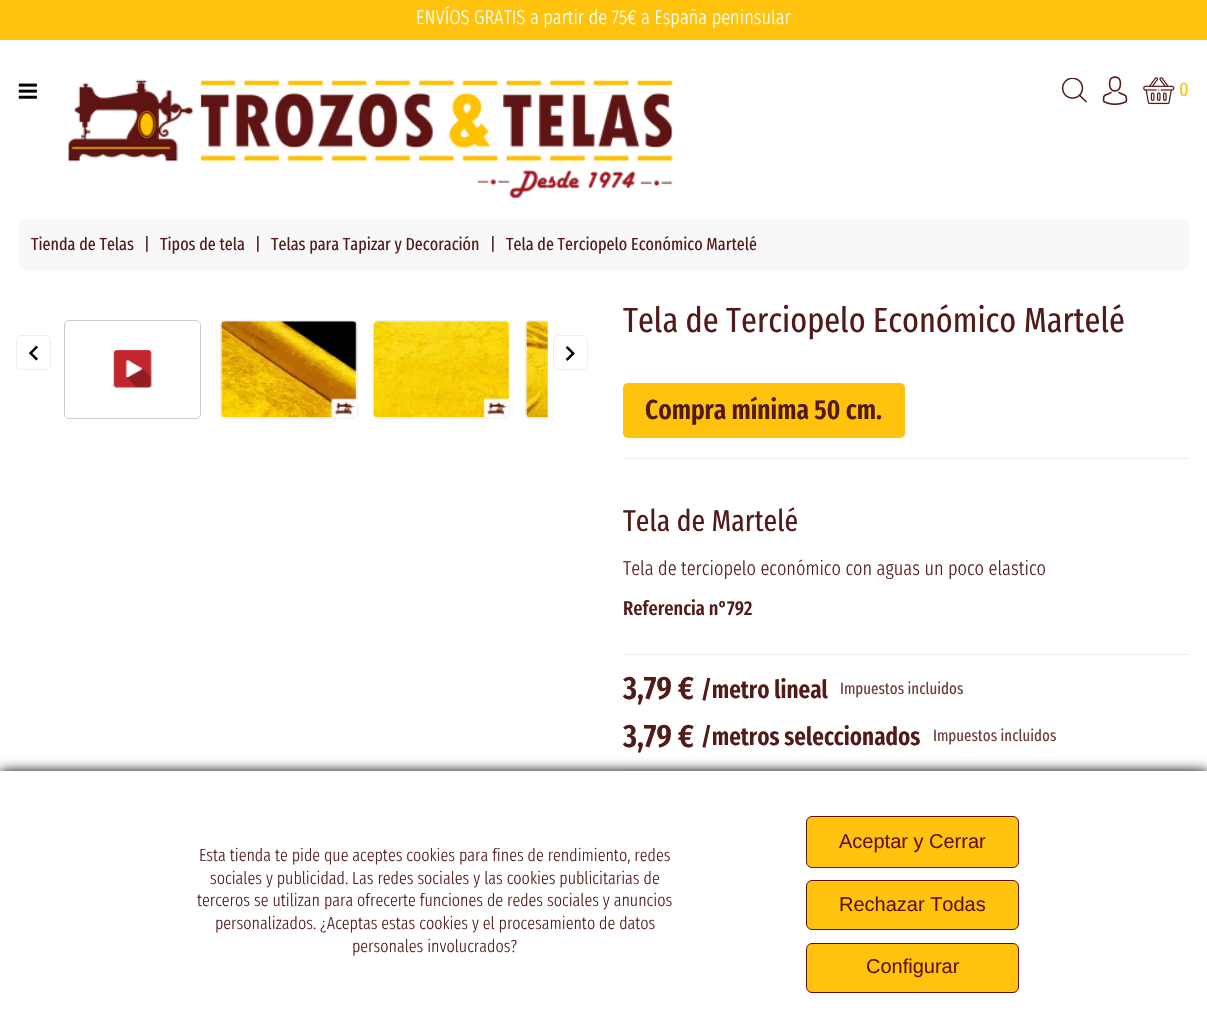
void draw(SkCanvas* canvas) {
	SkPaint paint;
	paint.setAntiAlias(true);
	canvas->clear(0xffffffff);
	paint.setColor(0xffffc30e);
	canvas->drawRect(SkRect::MakeXYWH(0, 0, 1207, 40), paint);
	SkFont f1(fontMgr->matchFamilyStyle("Fira Sans Extra Condensed", SkFontStyle(300, SkFontStyle::kNormal_Width, SkFontStyle::kUpright_Slant)), 20);
	f1.setSubpixel(true);
	paint.setColor(0xffffffff);
	canvas->drawString("ENVÍOS GRATIS a partir de 75€ a España peninsular", 416, 24, f1, paint);
	canvas->drawImageRect(SkImages::DeferredFromEncodedData(SkData::MakeFromFileName("img1.png")), SkRect::MakeXYWH(18, 83, 19, 16), SkSamplingOptions());
	canvas->drawImageRect(SkImages::DeferredFromEncodedData(SkData::MakeFromFileName("img2.png")), SkRect::MakeXYWH(68, 79, 605, 120), SkSamplingOptions());
	canvas->drawImageRect(SkImages::DeferredFromEncodedData(SkData::MakeFromFileName("img3.png")), SkRect::MakeXYWH(1061, 78, 26, 25), SkSamplingOptions());
	canvas->drawImageRect(SkImages::DeferredFromEncodedData(SkData::MakeFromFileName("img4.png")), SkRect::MakeXYWH(1102, 76, 26, 29), SkSamplingOptions());
	canvas->drawImageRect(SkImages::DeferredFromEncodedData(SkData::MakeFromFileName("img5.png")), SkRect::MakeXYWH(1143, 77, 32, 28), SkSamplingOptions());
	SkFont f2(fontMgr->matchFamilyStyle("Fira Sans Extra Condensed", SkFontStyle::Normal()), 20);
	f2.setSubpixel(true);
	paint.setColor(0xffffc30e);
	canvas->drawString("0", 1179, 96, f2, paint);
	paint.setColor(0xfff8f8f8);
	canvas->drawRoundRect(SkRect::MakeXYWH(19, 219, 1170, 51), 5, 5, paint);
	SkFont f3(fontMgr->matchFamilyStyle("Fira Sans Extra Condensed", SkFontStyle::Normal()), 17.5);
	f3.setSubpixel(true);
	paint.setColor(0xff521b19);
	canvas->drawString("Tienda de Telas", 31, 250, f3, paint);
	canvas->drawString("|", 144, 250, f3, paint);
	canvas->drawString("Tipos de tela", 160, 250, f3, paint);
	canvas->drawString("|", 255, 250, f3, paint);
	canvas->drawString("Telas para Tapizar y Decoración", 271, 250, f3, paint);
	canvas->drawString("|", 490, 250, f3, paint);
	canvas->drawString("Tela de Terciopelo Económico Martelé", 506, 250, f3, paint);
	paint.setStroke(true);
	paint.setStrokeWidth(1);
	paint.setColor(0xffcccccc);
	canvas->drawRoundRect(SkRect::MakeXYWH(64.5, 320.5, 136, 98), 4.5, 4.5, paint);
	canvas->drawImageRect(SkImages::DeferredFromEncodedData(SkData::MakeFromFileName("img6.png")), SkRect::MakeXYWH(113, 350, 39, 38), SkSamplingOptions());
	paint.setColor(0xffeeeeee);
	canvas->drawRoundRect(SkRect::MakeXYWH(220.5, 320.5, 137, 98), 4.5, 4.5, paint);
	canvas->drawImageRect(SkImages::DeferredFromEncodedData(SkData::MakeFromFileName("img7.png")), SkRect::MakeXYWH(220, 321, 137, 97), SkSamplingOptions());
	canvas->drawRoundRect(SkRect::MakeXYWH(373.5, 320.5, 136, 98), 4.5, 4.5, paint);
	canvas->drawImageRect(SkImages::DeferredFromEncodedData(SkData::MakeFromFileName("img8.png")), SkRect::MakeXYWH(373, 321, 136, 97), SkSamplingOptions());
	canvas->save();
	canvas->clipRect(SkRect::MakeXYWH(56, 320, 492, 113));
	canvas->drawRoundRect(SkRect::MakeXYWH(525.5, 320.5, 137, 98), 4.5, 4.5, paint);
	canvas->restore();
	canvas->drawImageRect(SkImages::DeferredFromEncodedData(SkData::MakeFromFileName("img9.png")), SkRect::MakeXYWH(525, 321, 23, 97), SkSamplingOptions());
	canvas->drawRoundRect(SkRect::MakeXYWH(16.5, 335.5, 34, 34), 4.5, 4.5, paint);
	canvas->drawImageRect(SkImages::DeferredFromEncodedData(SkData::MakeFromFileName("img10.png")), SkRect::MakeXYWH(28, 345, 10, 16), SkSamplingOptions());
	canvas->drawRoundRect(SkRect::MakeXYWH(553.5, 335.5, 34, 34), 4.5, 4.5, paint);
	canvas->drawImageRect(SkImages::DeferredFromEncodedData(SkData::MakeFromFileName("img11.png")), SkRect::MakeXYWH(565, 346, 10, 15), SkSamplingOptions());
	SkFont f4(fontMgr->matchFamilyStyle("Fira Sans Extra Condensed", SkFontStyle::Normal()), 35);
	f4.setSubpixel(true);
	paint.setStroke(false);
	paint.setColor(0xff521b19);
	canvas->drawString("Tela de Terciopelo Económico Martelé", 623, 332, f4, paint);
	paint.setColor(0xffffc30e);
	canvas->drawRoundRect(SkRect::MakeXYWH(623, 383, 282, 55), 5, 5, paint);
	SkFont f5(fontMgr->matchFamilyStyle("Fira Sans Extra Condensed", SkFontStyle(600, SkFontStyle::kNormal_Width, SkFontStyle::kUpright_Slant)), 27.5);
	f5.setSubpixel(true);
	paint.setColor(0xff521b19);
	canvas->drawString("Compra mínima 50 cm.", 645, 419, f5, paint);
	paint.setColor(0xffeeeeee);
	canvas->drawRect(SkRect::MakeXYWH(623, 458, 566, 1), paint);
	canvas->drawRect(SkRect::MakeXYWH(623, 654, 566, 1), paint);
	SkFont f6(fontMgr->matchFamilyStyle("Fira Sans Extra Condensed", SkFontStyle::Normal()), 30);
	f6.setSubpixel(true);
	paint.setColor(0xff521b19);
	canvas->drawString("Tela de Martelé", 623, 531, f6, paint);
	canvas->drawString("Tela de terciopelo económico con aguas un poco elastico", 623, 575, f1, paint);
	SkFont f7(fontMgr->matchFamilyStyle("Fira Sans Extra Condensed", SkFontStyle(500, SkFontStyle::kNormal_Width, SkFontStyle::kUpright_Slant)), 20);
	f7.setSubpixel(true);
	canvas->drawString("Referencia n°792", 623, 615, f7, paint);
	paint.setColor(0xffeeeeee);
	canvas->drawRect(SkRect::MakeXYWH(623, 769, 566, 1), paint);
	SkFont f8(fontMgr->matchFamilyStyle("Fira Sans Extra Condensed", SkFontStyle(600, SkFontStyle::kNormal_Width, SkFontStyle::kUpright_Slant)), 32.5);
	f8.setSubpixel(true);
	paint.setColor(0xff521b19);
	canvas->drawString("3,79 €", 623, 699, f8, paint);
	SkFont f9(fontMgr->matchFamilyStyle("Fira Sans Extra Condensed", SkFontStyle(600, SkFontStyle::kNormal_Width, SkFontStyle::kUpright_Slant)), 25);
	f9.setSubpixel(true);
	canvas->drawString("/metro lineal", 701, 698, f9, paint);
	SkFont f10(fontMgr->matchFamilyStyle("Fira Sans Extra Condensed", SkFontStyle::Normal()), 16.25);
	f10.setSubpixel(true);
	paint.setColor(0xff6f3d3b);
	canvas->drawString("Impuestos incluidos", 840, 694, f10, paint);
	paint.setColor(0xff521b19);
	canvas->drawString("3,79 €", 623, 747, f8, paint);
	canvas->drawString("/metros seleccionados", 701, 745, f9, paint);
	paint.setColor(0xff6f3d3b);
	canvas->drawString("Impuestos incluidos", 933, 741, f10, paint);
	paint.setColor(0xff000000);
	paint.setMaskFilter(SkMaskFilter::MakeBlur(kNormal_SkBlurStyle, 6));
	canvas->drawRect(SkRect::MakeXYWH(0, 771, 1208, 260), paint);
	paint.setMaskFilter(nullptr);
	paint.setColor(0xffffffff);
	canvas->drawRect(SkRect::MakeXYWH(0, 771, 1207, 260), paint);
	SkFont f11(fontMgr->matchFamilyStyle("Fira Sans Extra Condensed", SkFontStyle(300, SkFontStyle::kNormal_Width, SkFontStyle::kUpright_Slant)), 17.5);
	f11.setSubpixel(true);
	paint.setColor(0xff521b19);
	canvas->drawString("Esta tienda te pide que aceptes cookies para fines de rendimiento, redes", 199, 861, f11, paint);
	canvas->drawString("sociales y publicidad. Las redes sociales y las cookies publicitarias de", 210, 884, f11, paint);
	canvas->drawString("terceros se utilizan para ofrecerte funciones de redes sociales y anuncios", 197, 906, f11, paint);
	canvas->drawString("personalizados. ¿Aceptas estas cookies y el procesamiento de datos", 215, 929, f11, paint);
	canvas->drawString("personales involucrados?", 352, 952, f11, paint);
	paint.setColor(0xffffc30e);
	canvas->drawRoundRect(SkRect::MakeXYWH(806.5, 816.5, 212, 51), 5.5, 5.5, paint);
	paint.setStroke(true);
	paint.setColor(0xff601411);
	canvas->drawRoundRect(SkRect::MakeXYWH(806.5, 816.5, 212, 51), 5.5, 5.5, paint);
	SkFont f12(fontMgr->matchFamilyStyle("Liberation Sans", SkFontStyle::Normal()), 20);
	f12.setSubpixel(true);
	paint.setStroke(false);
	canvas->drawString("Aceptar y Cerrar", 839, 848, f12, paint);
	paint.setColor(0xffffc30e);
	canvas->drawRoundRect(SkRect::MakeXYWH(806.5, 880.5, 212, 49), 5.5, 5.5, paint);
	paint.setStroke(true);
	paint.setColor(0xff601411);
	canvas->drawRoundRect(SkRect::MakeXYWH(806.5, 880.5, 212, 49), 5.5, 5.5, paint);
	paint.setStroke(false);
	canvas->drawString("Rechazar Todas", 839, 911, f12, paint);
	paint.setColor(0xffffc30e);
	canvas->drawRoundRect(SkRect::MakeXYWH(806.5, 943.5, 212, 49), 5.5, 5.5, paint);
	paint.setStroke(true);
	paint.setColor(0xff601411);
	canvas->drawRoundRect(SkRect::MakeXYWH(806.5, 943.5, 212, 49), 5.5, 5.5, paint);
	paint.setStroke(false);
	canvas->drawString("Configurar", 866, 973, f12, paint);
}
